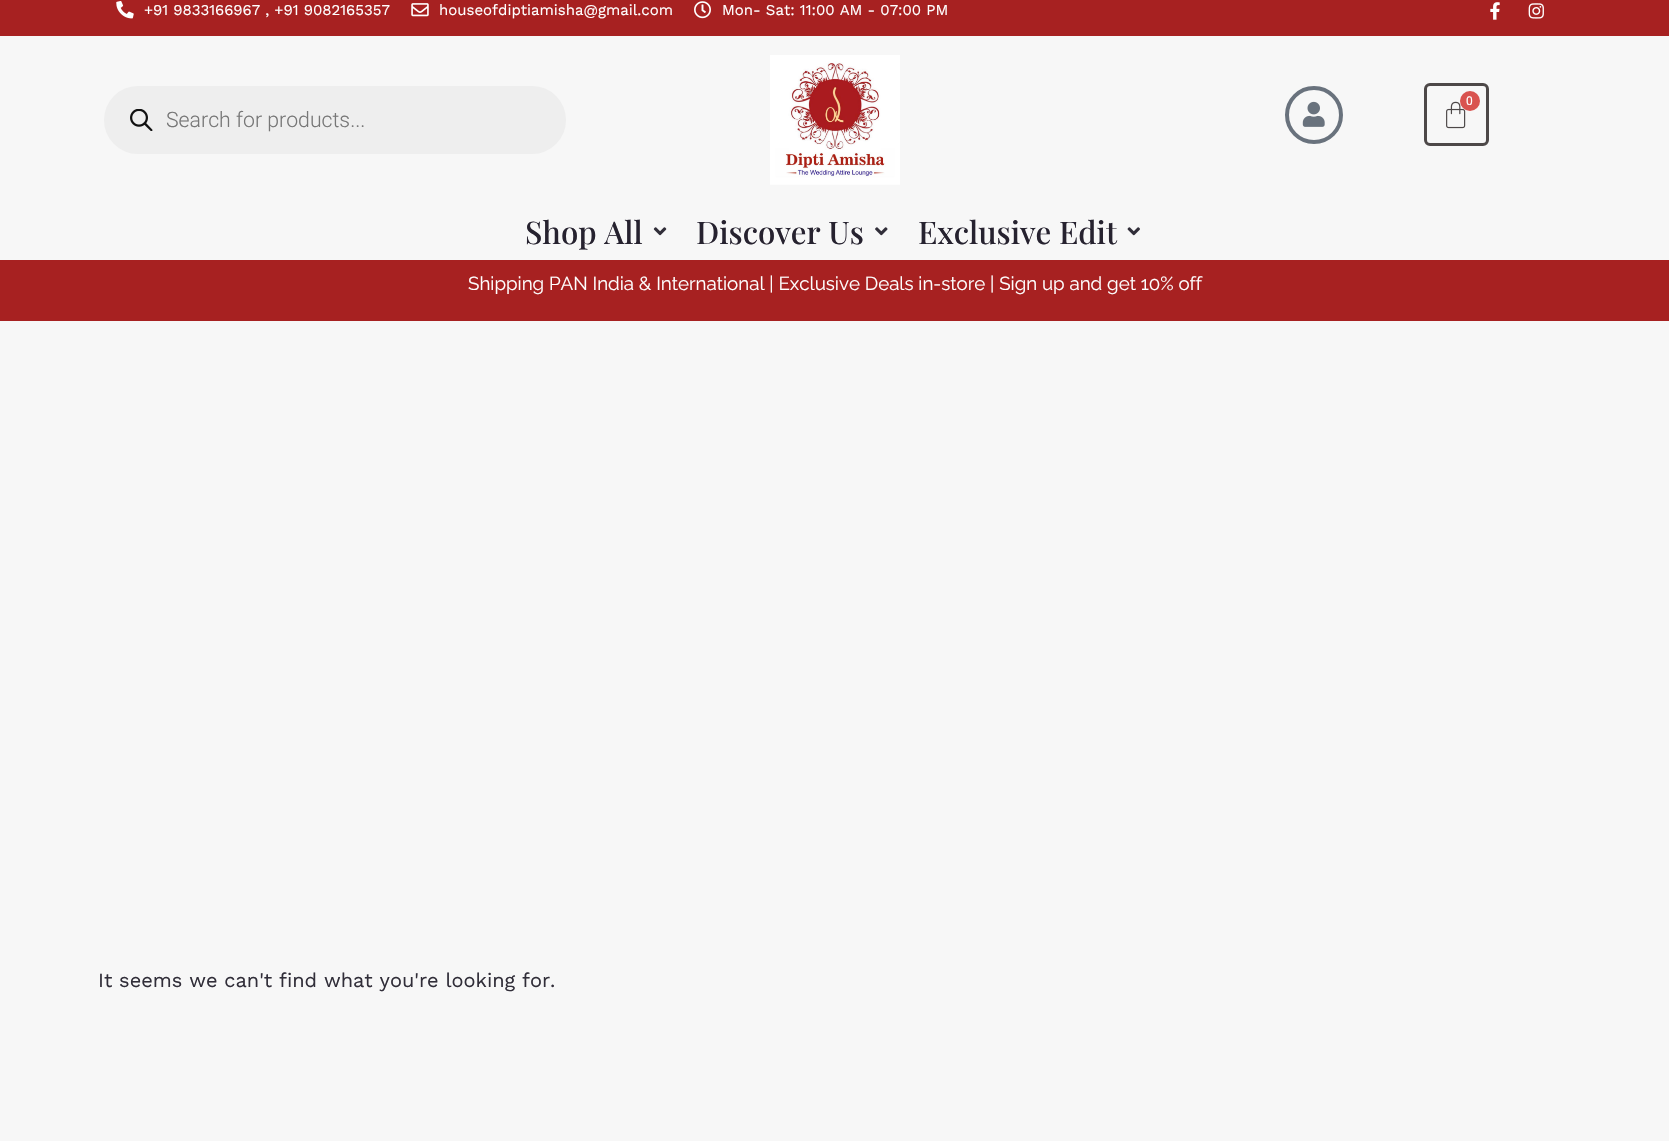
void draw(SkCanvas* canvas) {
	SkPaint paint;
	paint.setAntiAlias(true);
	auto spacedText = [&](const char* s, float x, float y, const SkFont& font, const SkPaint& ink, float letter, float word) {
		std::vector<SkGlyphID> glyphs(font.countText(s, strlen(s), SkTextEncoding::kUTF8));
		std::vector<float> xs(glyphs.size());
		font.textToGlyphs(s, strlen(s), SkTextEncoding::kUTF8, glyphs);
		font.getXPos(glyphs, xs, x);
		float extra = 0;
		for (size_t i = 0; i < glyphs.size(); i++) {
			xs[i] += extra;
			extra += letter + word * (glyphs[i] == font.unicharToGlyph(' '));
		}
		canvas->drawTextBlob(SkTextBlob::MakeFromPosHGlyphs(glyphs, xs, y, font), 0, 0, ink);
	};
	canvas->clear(0xfff7f7f7);
	paint.setColor(0xffa72121);
	canvas->drawRect(SkRect::MakeXYWH(0, 0, 1669, 36), paint);
	canvas->drawImageRect(SkImages::DeferredFromEncodedData(SkData::MakeFromFileName("img1.png")), SkRect::MakeXYWH(116, 1, 18, 18), SkSamplingOptions());
	SkFont f1(fontMgr->matchFamilyStyle("Work Sans", SkFontStyle::Normal()), 15);
	f1.setSubpixel(true);
	paint.setColor(0xffffffff);
	canvas->drawString("+91 9833166967 , +91 9082165357", 144, 15, f1, paint);
	canvas->drawImageRect(SkImages::DeferredFromEncodedData(SkData::MakeFromFileName("img2.png")), SkRect::MakeXYWH(411, 3, 18, 14), SkSamplingOptions());
	canvas->drawString("houseofdiptiamisha@gmail.com", 439, 15, f1, paint);
	canvas->drawImageRect(SkImages::DeferredFromEncodedData(SkData::MakeFromFileName("img3.png")), SkRect::MakeXYWH(694, 1, 17, 18), SkSamplingOptions());
	canvas->drawString("Mon- Sat: 11:00 AM - 07:00 PM", 722, 15, f1, paint);
	canvas->drawImageRect(SkImages::DeferredFromEncodedData(SkData::MakeFromFileName("img4.png")), SkRect::MakeXYWH(1490, 2, 10, 18), SkSamplingOptions());
	canvas->drawImageRect(SkImages::DeferredFromEncodedData(SkData::MakeFromFileName("img5.png")), SkRect::MakeXYWH(1528, 3, 16, 16), SkSamplingOptions());
	canvas->drawImageRect(SkImages::DeferredFromEncodedData(SkData::MakeFromFileName("img6.png")), SkRect::MakeXYWH(770, 55, 130, 130), SkSamplingOptions());
	paint.setStroke(true);
	paint.setStrokeWidth(4);
	paint.setColor(0xff69727d);
	canvas->drawCircle(1314, 115, 27, paint);
	canvas->drawImageRect(SkImages::DeferredFromEncodedData(SkData::MakeFromFileName("img7.png")), SkRect::MakeXYWH(1302, 101, 23, 26), SkSamplingOptions());
	paint.setStrokeWidth(3);
	paint.setColor(0xff4d4848);
	canvas->drawRoundRect(SkRect::MakeXYWH(1425.5, 84.5, 62, 60), 4.5, 4.5, paint);
	canvas->drawImageRect(SkImages::DeferredFromEncodedData(SkData::MakeFromFileName("img8.png")), SkRect::MakeXYWH(1446, 101, 20, 28), SkSamplingOptions());
	paint.setStroke(false);
	paint.setColor(0xffd9534f);
	canvas->drawCircle(1470, 101, 10, paint);
	SkFont f2(fontMgr->matchFamilyStyle("Roboto", SkFontStyle::Normal()), 12);
	f2.setSubpixel(true);
	paint.setColor(0xffffffff);
	spacedText("0", 1466, 105, f2, paint, 1, 0);
	paint.setColor(0xffeeeeee);
	canvas->drawRoundRect(SkRect::MakeXYWH(104, 86, 462, 68), 34, 34, paint);
	canvas->drawImageRect(SkImages::DeferredFromEncodedData(SkData::MakeFromFileName("img9.png")), SkRect::MakeXYWH(130, 109, 23, 22), SkSamplingOptions());
	SkFont f3(fontMgr->matchFamilyStyle("Roboto", SkFontStyle(300, SkFontStyle::kNormal_Width, SkFontStyle::kUpright_Slant)), 21.25);
	f3.setSubpixel(true);
	paint.setColor(0xff777777);
	canvas->drawString("Search for products...", 166, 127, f3, paint);
	SkFont f4(fontMgr->matchFamilyStyle("Playfair Display", SkFontStyle(500, SkFontStyle::kNormal_Width, SkFontStyle::kUpright_Slant)), 31.25);
	f4.setSubpixel(true);
	paint.setColor(0xff26222f);
	canvas->drawString("Shop All", 525, 244, f4, paint);
	canvas->drawImageRect(SkImages::DeferredFromEncodedData(SkData::MakeFromFileName("img10.png")), SkRect::MakeXYWH(653, 227, 14, 9), SkSamplingOptions());
	canvas->drawString("Discover Us", 696, 244, f4, paint);
	canvas->drawImageRect(SkImages::DeferredFromEncodedData(SkData::MakeFromFileName("img11.png")), SkRect::MakeXYWH(875, 227, 13, 9), SkSamplingOptions());
	canvas->drawString("Exclusive Edit", 918, 244, f4, paint);
	canvas->drawImageRect(SkImages::DeferredFromEncodedData(SkData::MakeFromFileName("img12.png")), SkRect::MakeXYWH(1127, 227, 13, 9), SkSamplingOptions());
	paint.setColor(0xffa72121);
	canvas->drawRect(SkRect::MakeXYWH(0, 260, 1669, 61), paint);
	SkFont f5(fontMgr->matchFamilyStyle("Raleway", SkFontStyle::Normal()), 18.75);
	f5.setSubpixel(true);
	paint.setColor(0xffffffff);
	canvas->drawString("Shipping PAN India & International | Exclusive Deals in-store | Sign up and get 10% off", 468, 290, f5, paint);
	SkFont f6(fontMgr->matchFamilyStyle("Work Sans", SkFontStyle::Normal()), 20);
	f6.setSubpixel(true);
	paint.setColor(0xff312e39);
	canvas->drawString("It seems we can't find what you're looking for.", 98, 987, f6, paint);
}
